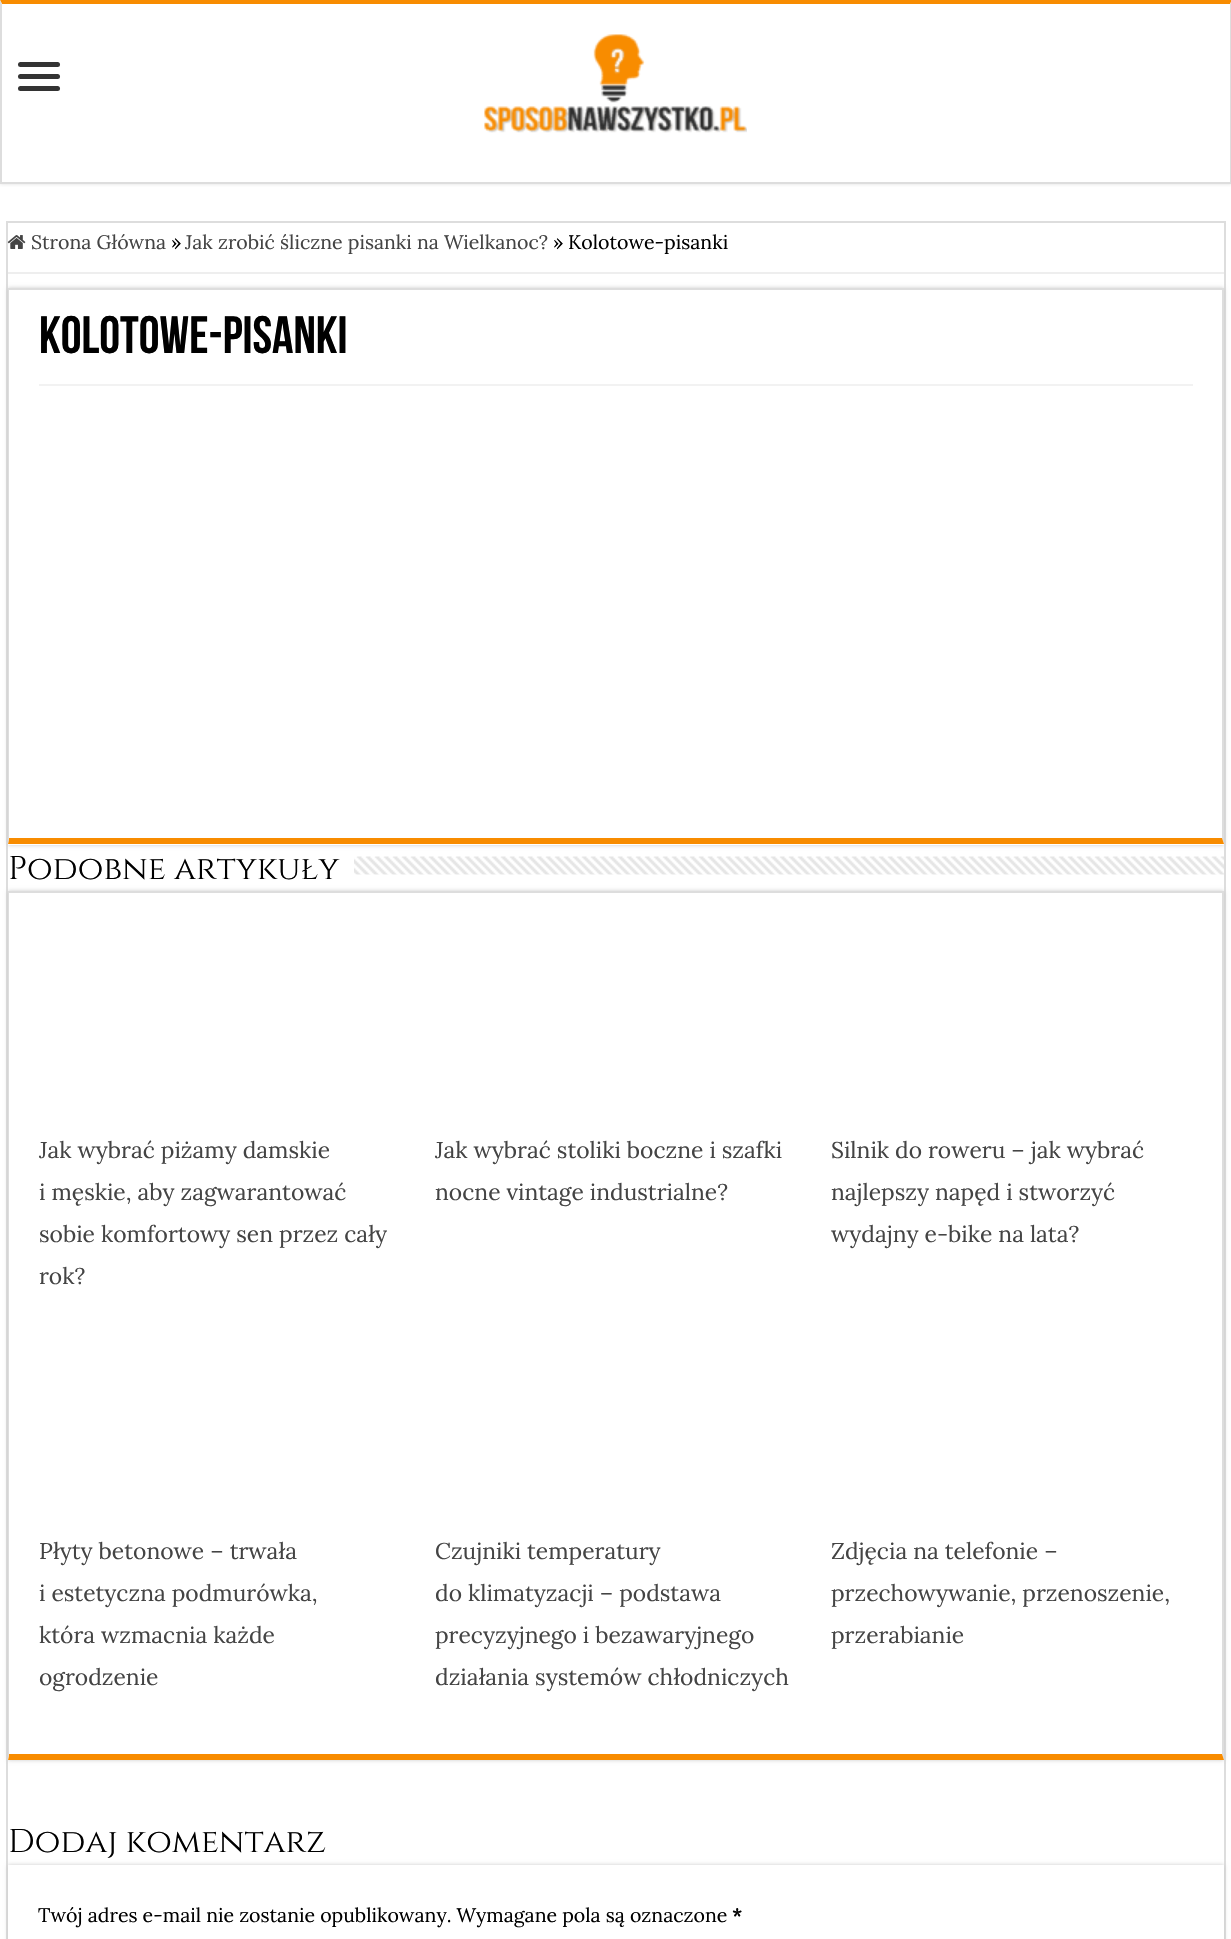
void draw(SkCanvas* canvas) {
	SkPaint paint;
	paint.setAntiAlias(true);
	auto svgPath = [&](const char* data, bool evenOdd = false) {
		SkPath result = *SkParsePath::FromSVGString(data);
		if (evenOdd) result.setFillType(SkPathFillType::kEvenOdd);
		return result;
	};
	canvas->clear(0xffffffff);
	canvas->save();
	canvas->clipRect(SkRect::MakeXYWH(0, 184, 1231, 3));
	paint.setColor(0xffcacaca);
	paint.setMaskFilter(SkMaskFilter::MakeBlur(kNormal_SkBlurStyle, 2));
	canvas->drawRect(SkRect::MakeXYWH(0, 0, 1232, 183), paint);
	paint.setMaskFilter(nullptr);
	canvas->restore();
	paint.setColor(0xfff88c00);
	canvas->drawPath(svgPath("M0 0H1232L1230 4H2Z"), paint);
	paint.setColor(0xffdddddd);
	canvas->drawPath(svgPath("M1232 0V183L1230 182V4Z"), paint);
	canvas->drawRect(SkRect::MakeXYWH(0, 182, 1231, 2), paint);
	canvas->drawPath(svgPath("M0 183V0L2 4V182Z"), paint);
	paint.setColor(0xff333333);
	canvas->drawRoundRect(SkRect::MakeXYWH(18, 62, 42, 5), 2.5, 2.5, paint);
	canvas->drawRoundRect(SkRect::MakeXYWH(18, 74, 42, 5), 2.5, 2.5, paint);
	canvas->drawRoundRect(SkRect::MakeXYWH(18, 86, 42, 5), 2.5, 2.5, paint);
	canvas->drawImageRect(SkImages::DeferredFromEncodedData(SkData::MakeFromFileName("img1.png")), SkRect::MakeXYWH(484, 34, 263, 99), SkSamplingOptions());
	paint.setStroke(true);
	paint.setStrokeWidth(2);
	paint.setColor(0xffdddddd);
	canvas->drawRect(SkRect::MakeXYWH(7, 222, 1218, 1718), paint);
	paint.setStroke(false);
	paint.setColor(0xffeeeeee);
	canvas->drawRect(SkRect::MakeXYWH(8, 272, 1216, 2), paint);
	canvas->drawImageRect(SkImages::DeferredFromEncodedData(SkData::MakeFromFileName("img2.png")), SkRect::MakeXYWH(7, 235, 19, 14), SkSamplingOptions());
	SkFont f1(fontMgr->matchFamilyStyle("Lora", SkFontStyle::Normal()), 19.5);
	f1.setSubpixel(true);
	paint.setColor(0xff444444);
	canvas->drawString("Strona Główna", 31, 249, f1, paint);
	paint.setColor(0xff000000);
	canvas->drawString("»", 171, 249, f1, paint);
	paint.setColor(0xff444444);
	canvas->drawString("Jak zrobić śliczne pisanki na Wielkanoc?", 185, 249, f1, paint);
	paint.setColor(0xff000000);
	canvas->drawString("»", 553, 249, f1, paint);
	canvas->drawString("Kolotowe-pisanki", 568, 249, f1, paint);
	canvas->save();
	canvas->clipPath(svgPath("M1 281H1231V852H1ZM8 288H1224V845H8Z", true), true);
	paint.setColor(0xffcacaca);
	paint.setMaskFilter(SkMaskFilter::MakeBlur(kNormal_SkBlurStyle, 2));
	canvas->drawRect(SkRect::MakeXYWH(8, 288, 1216, 557), paint);
	paint.setMaskFilter(nullptr);
	canvas->restore();
	paint.setColor(0xffdddddd);
	canvas->drawRect(SkRect::MakeXYWH(8, 288, 1216, 2), paint);
	canvas->drawPath(svgPath("M1224 288V844L1222 838V290Z"), paint);
	paint.setColor(0xfff88c00);
	canvas->drawPath(svgPath("M1224 844H8L9 838H1222Z"), paint);
	paint.setColor(0xffdddddd);
	canvas->drawPath(svgPath("M8 844V288L9 290V838Z"), paint);
	SkFont f2(fontMgr->matchFamilyStyle("Bebas Neue", SkFontStyle::Bold()), 52.5);
	f2.setSubpixel(true);
	paint.setColor(0xff000000);
	canvas->drawString("Kolotowe-pisanki", 39, 353, f2, paint);
	paint.setColor(0xfff2f2f2);
	canvas->drawRect(SkRect::MakeXYWH(39, 384, 1154, 2), paint);
	SkFont f3(fontMgr->matchFamilyStyle("Cinzel", SkFontStyle::Normal()), 33);
	f3.setSubpixel(true);
	paint.setColor(0xff000000);
	canvas->drawString("Podobne artykuły", 8, 879, f3, paint);
	canvas->drawImageRect(SkImages::DeferredFromEncodedData(SkData::MakeFromFileName("img3.png")), SkRect::MakeXYWH(354, 856, 870, 19), SkSamplingOptions());
	canvas->save();
	canvas->clipPath(svgPath("M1 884H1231V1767H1ZM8 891H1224V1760H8Z", true), true);
	paint.setColor(0xffcacaca);
	paint.setMaskFilter(SkMaskFilter::MakeBlur(kNormal_SkBlurStyle, 2));
	canvas->drawRect(SkRect::MakeXYWH(8, 891, 1216, 869), paint);
	paint.setMaskFilter(nullptr);
	canvas->restore();
	paint.setColor(0xffdddddd);
	canvas->drawRect(SkRect::MakeXYWH(8, 891, 1216, 2), paint);
	canvas->drawPath(svgPath("M1224 891V1760L1222 1754V892Z"), paint);
	paint.setColor(0xfff88c00);
	canvas->drawPath(svgPath("M1224 1760H8L9 1754H1222Z"), paint);
	paint.setColor(0xffdddddd);
	canvas->drawPath(svgPath("M8 1760V891L9 892V1754Z"), paint);
	SkFont f4(fontMgr->matchFamilyStyle("Lora", SkFontStyle::Normal()), 22.8);
	f4.setSubpixel(true);
	paint.setColor(0xff444444);
	canvas->drawString("Jak wybrać piżamy damskie", 39, 1158, f4, paint);
	canvas->drawString("i męskie, aby zagwarantować", 39, 1200, f4, paint);
	canvas->drawString("sobie komfortowy sen przez cały", 39, 1242, f4, paint);
	canvas->drawString("rok?", 39, 1284, f4, paint);
	canvas->drawString("Jak wybrać stoliki boczne i szafki", 435, 1158, f4, paint);
	canvas->drawString("nocne vintage industrialne?", 435, 1200, f4, paint);
	canvas->drawString("Silnik do roweru – jak wybrać", 831, 1158, f4, paint);
	canvas->drawString("najlepszy napęd i stworzyć", 831, 1200, f4, paint);
	canvas->drawString("wydajny e-bike na lata?", 831, 1242, f4, paint);
	canvas->drawString("Płyty betonowe – trwała", 39, 1559, f4, paint);
	canvas->drawString("i estetyczna podmurówka,", 39, 1601, f4, paint);
	canvas->drawString("która wzmacnia każde", 39, 1643, f4, paint);
	canvas->drawString("ogrodzenie", 39, 1685, f4, paint);
	canvas->drawString("Czujniki temperatury", 435, 1559, f4, paint);
	canvas->drawString("do klimatyzacji – podstawa", 435, 1601, f4, paint);
	canvas->drawString("precyzyjnego i bezawaryjnego", 435, 1643, f4, paint);
	canvas->drawString("działania systemów chłodniczych", 435, 1685, f4, paint);
	canvas->drawString("Zdjęcia na telefonie –", 831, 1559, f4, paint);
	canvas->drawString("przechowywanie, przenoszenie,", 831, 1601, f4, paint);
	canvas->drawString("przerabianie", 831, 1643, f4, paint);
	paint.setColor(0xff000000);
	canvas->drawString("Dodaj komentarz", 8, 1852, f3, paint);
	canvas->save();
	canvas->clipPath(svgPath("M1 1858H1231V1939H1ZM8 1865H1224V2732H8Z", true), true);
	paint.setColor(0xffcacaca);
	paint.setMaskFilter(SkMaskFilter::MakeBlur(kNormal_SkBlurStyle, 2));
	canvas->drawRect(SkRect::MakeXYWH(8, 1865, 1216, 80), paint);
	paint.setMaskFilter(nullptr);
	canvas->restore();
	paint.setColor(0xff000000);
	canvas->drawString("Twój adres e-mail nie zostanie opublikowany. Wymagane pola są oznaczone", 38, 1922, f1, paint);
	SkFont f5(fontMgr->matchFamilyStyle("Lora", SkFontStyle::Bold()), 19.5);
	f5.setSubpixel(true);
	canvas->drawString("*", 732, 1922, f5, paint);
}
